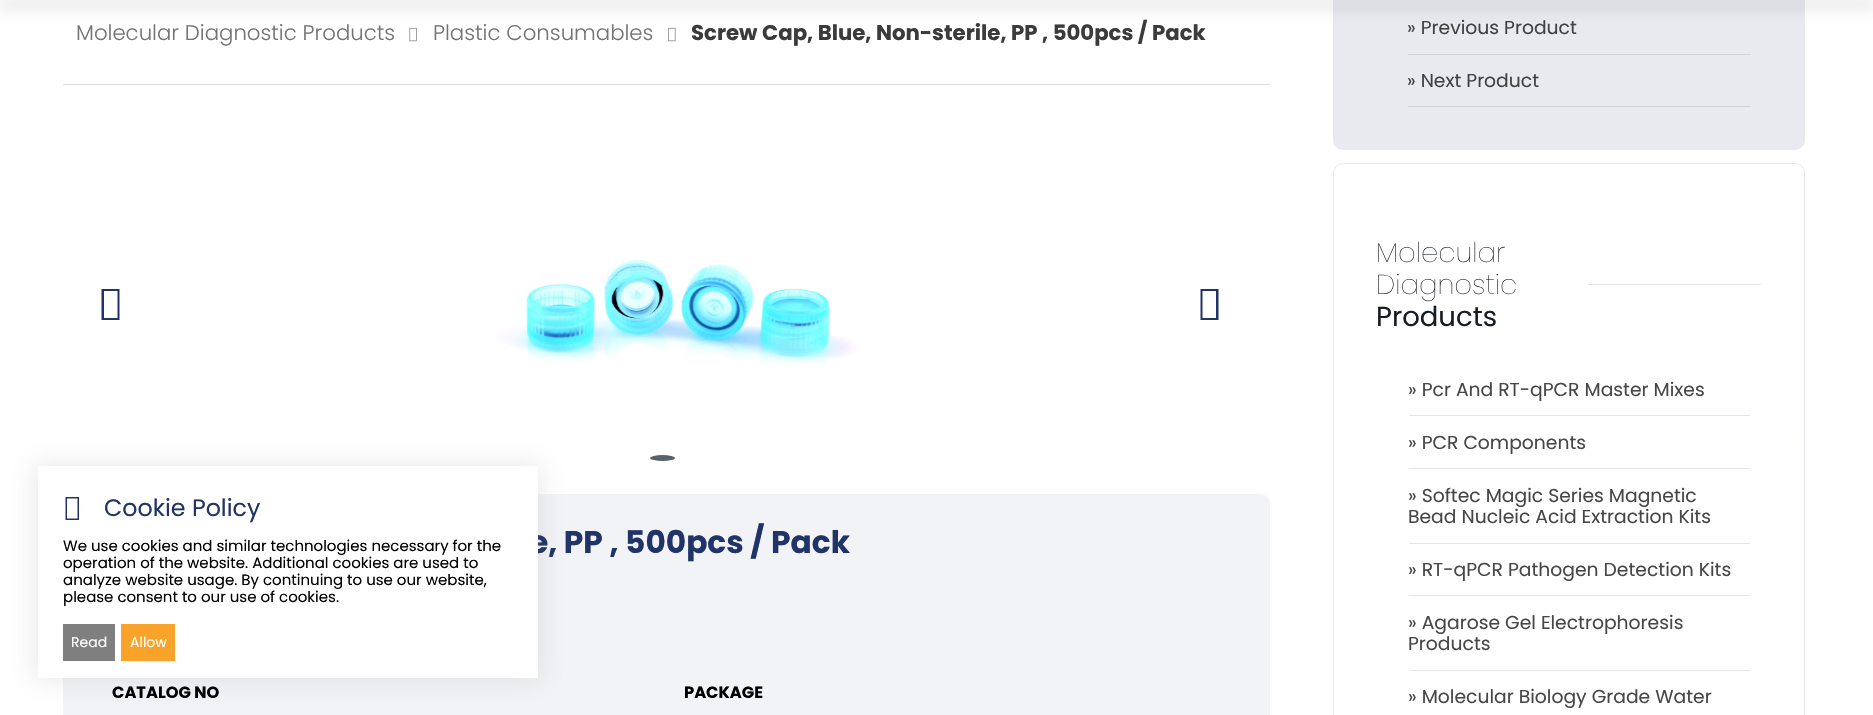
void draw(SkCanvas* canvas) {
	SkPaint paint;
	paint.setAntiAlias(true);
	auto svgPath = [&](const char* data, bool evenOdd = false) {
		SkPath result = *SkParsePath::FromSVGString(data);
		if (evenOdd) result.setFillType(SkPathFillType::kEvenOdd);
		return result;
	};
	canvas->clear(0xffffffff);
	canvas->drawImageRect(SkImages::DeferredFromEncodedData(SkData::MakeFromFileName("img1.png")), SkRect::MakeXYWH(409, 27, 8, 15), SkSamplingOptions());
	canvas->drawImageRect(SkImages::DeferredFromEncodedData(SkData::MakeFromFileName("img2.png")), SkRect::MakeXYWH(668, 27, 8, 15), SkSamplingOptions());
	paint.setColor(0xffe8eaf0);
	canvas->drawRoundRect(SkRect::MakeXYWH(1333, -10, 472, 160), 10, 10, paint);
	paint.setColor(0x52000000);
	paint.setMaskFilter(SkMaskFilter::MakeBlur(kNormal_SkBlurStyle, 7.5));
	canvas->drawRect(SkRect::MakeXYWH(-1, 3, 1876, 3), paint);
	paint.setMaskFilter(nullptr);
	paint.setColor(0xffdddddd);
	canvas->drawRect(SkRect::MakeXYWH(63, 84, 1207, 1), paint);
	SkFont f1(fontMgr->matchFamilyStyle("Poppins", SkFontStyle(300, SkFontStyle::kNormal_Width, SkFontStyle::kUpright_Slant)), 21.25);
	f1.setSubpixel(true);
	paint.setColor(0xff747474);
	canvas->drawString("Molecular Diagnostic Products", 76, 40, f1, paint);
	canvas->drawString("Plastic Consumables", 433, 40, f1, paint);
	SkFont f2(fontMgr->matchFamilyStyle("Poppins", SkFontStyle::Bold()), 21.25);
	f2.setSubpixel(true);
	paint.setColor(0xff3b3b3b);
	canvas->drawString("Screw Cap, Blue, Non-sterile, PP , 500pcs / Pack", 691, 40, f2, paint);
	paint.setColor(0xff213468);
	canvas->drawPath(svgPath("M101.5 320V289H119.5V320ZM104 318H117.5V291H104Z"), paint);
	canvas->drawImageRect(SkImages::DeferredFromEncodedData(SkData::MakeFromFileName("img3.png")), SkRect::MakeXYWH(496, 260, 361, 121), SkSamplingOptions());
	canvas->drawPath(svgPath("M1200.5 320V289H1218.5V320ZM1202.5 318H1216V291H1202.5Z"), paint);
	paint.setColor(0xff5b616a);
	canvas->drawOval(SkRect::MakeXYWH(650, 455, 25, 6), paint);
	paint.setColor(0xfff2f3f7);
	canvas->drawRoundRect(SkRect::MakeXYWH(63, 494, 1207, 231), 10, 10, paint);
	SkFont f3(fontMgr->matchFamilyStyle("Poppins", SkFontStyle::Bold()), 31.25);
	f3.setSubpixel(true);
	paint.setColor(0xff213468);
	canvas->drawString("e, PP , 500pcs / Pack", 529, 553, f3, paint);
	SkFont f4(fontMgr->matchFamilyStyle("Poppins", SkFontStyle::Bold()), 16.25);
	f4.setSubpixel(true);
	paint.setColor(0xff000000);
	canvas->drawString("CATALOG NO", 112, 698, f4, paint);
	canvas->drawString("PACKAGE", 684, 698, f4, paint);
	paint.setColor(0xffd1d3d8);
	canvas->drawRect(SkRect::MakeXYWH(1408, 54, 343, 1), paint);
	SkFont f5(fontMgr->matchFamilyStyle("Poppins", SkFontStyle::Normal()), 18.75);
	f5.setSubpixel(true);
	paint.setColor(0xff414243);
	canvas->drawString("» Previous Product", 1407, 34, f5, paint);
	paint.setColor(0xffd1d3d8);
	canvas->drawRect(SkRect::MakeXYWH(1408, 106, 343, 1), paint);
	paint.setColor(0xff414243);
	canvas->drawString("» Next Product", 1407, 87, f5, paint);
	paint.setStroke(true);
	paint.setStrokeWidth(1);
	paint.setColor(0xffe8eaf0);
	canvas->drawRoundRect(SkRect::MakeXYWH(1333.5, 163.5, 471, 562), 9.5, 9.5, paint);
	SkFont f6(fontMgr->matchFamilyStyle("Poppins", SkFontStyle(200, SkFontStyle::kNormal_Width, SkFontStyle::kUpright_Slant)), 27.5);
	f6.setSubpixel(true);
	paint.setStroke(false);
	paint.setColor(0xff171d24);
	canvas->drawString("Molecular", 1376, 262, f6, paint);
	canvas->drawString("Diagnostic", 1376, 294, f6, paint);
	SkFont f7(fontMgr->matchFamilyStyle("Poppins", SkFontStyle::Normal()), 27.5);
	f7.setSubpixel(true);
	canvas->drawString("Products", 1376, 326, f7, paint);
	paint.setColor(0xffe6e4e5);
	canvas->drawRect(SkRect::MakeXYWH(1588, 284, 173, 1), paint);
	paint.setColor(0xffe6e6e6);
	canvas->drawRect(SkRect::MakeXYWH(1409, 415, 341, 1), paint);
	paint.setColor(0xff474747);
	canvas->drawString("» Pcr And RT-qPCR Master Mixes", 1408, 396, f5, paint);
	paint.setColor(0xffe6e6e6);
	canvas->drawRect(SkRect::MakeXYWH(1409, 468, 341, 1), paint);
	paint.setColor(0xff474747);
	canvas->drawString("» PCR Components", 1408, 449, f5, paint);
	paint.setColor(0xffe6e6e6);
	canvas->drawRect(SkRect::MakeXYWH(1409, 543, 341, 1), paint);
	paint.setColor(0xff474747);
	canvas->drawString("» Softec Magic Series Magnetic", 1408, 502, f5, paint);
	canvas->drawString("Bead Nucleic Acid Extraction Kits", 1408, 523, f5, paint);
	paint.setColor(0xffe6e6e6);
	canvas->drawRect(SkRect::MakeXYWH(1409, 595, 341, 1), paint);
	paint.setColor(0xff474747);
	canvas->drawString("» RT-qPCR Pathogen Detection Kits", 1408, 576, f5, paint);
	paint.setColor(0xffe6e6e6);
	canvas->drawRect(SkRect::MakeXYWH(1409, 670, 341, 1), paint);
	paint.setColor(0xff474747);
	canvas->drawString("» Agarose Gel Electrophoresis", 1408, 629, f5, paint);
	canvas->drawString("Products", 1408, 650, f5, paint);
	canvas->drawString("» Molecular Biology Grade Water", 1408, 703, f5, paint);
	paint.setColor(0x266a6a6a);
	paint.setMaskFilter(SkMaskFilter::MakeBlur(kNormal_SkBlurStyle, 12.5));
	canvas->drawRect(SkRect::MakeXYWH(35, 464, 505, 216), paint);
	paint.setMaskFilter(nullptr);
	paint.setColor(0xffffffff);
	canvas->drawRect(SkRect::MakeXYWH(38, 466, 500, 212), paint);
	paint.setColor(0xff213468);
	canvas->drawPath(svgPath("M65.5 520V497H79V520ZM67 518.5H77.5V498.5H67Z"), paint);
	SkFont f8(fontMgr->matchFamilyStyle("Poppins", SkFontStyle::Normal()), 23.75);
	f8.setSubpixel(true);
	canvas->drawString("Cookie Policy", 104, 516, f8, paint);
	SkFont f9(fontMgr->matchFamilyStyle("Poppins", SkFontStyle::Normal()), 15);
	f9.setSubpixel(true);
	paint.setColor(0xff000000);
	canvas->drawString("We use cookies and similar technologies necessary for the", 63, 551, f9, paint);
	canvas->drawString("operation of the website. Additional cookies are used to", 63, 568, f9, paint);
	canvas->drawString("analyze website usage. By continuing to use our website,", 63, 585, f9, paint);
	canvas->drawString("please consent to our use of cookies.", 63, 602, f9, paint);
	paint.setColor(0xff7f7f7f);
	canvas->drawRect(SkRect::MakeXYWH(63, 624, 52, 37), paint);
	SkFont f10(fontMgr->matchFamilyStyle("Poppins", SkFontStyle::Normal()), 14);
	f10.setSubpixel(true);
	paint.setColor(0xffffffff);
	canvas->drawString("Read", 71, 647, f10, paint);
	paint.setColor(0xfffaa32a);
	canvas->drawRect(SkRect::MakeXYWH(121, 624, 54, 37), paint);
	paint.setColor(0xffffffff);
	canvas->drawString("Allow", 130, 647, f10, paint);
}
